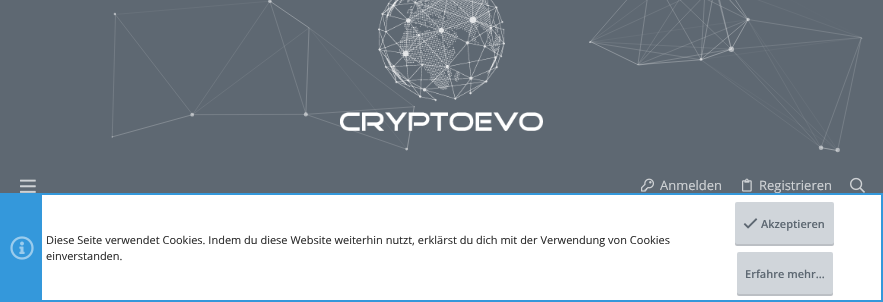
void draw(SkCanvas* canvas) {
	SkPaint paint;
	paint.setAntiAlias(true);
	auto svgPath = [&](const char* data, bool evenOdd = false) {
		SkPath result = *SkParsePath::FromSVGString(data);
		if (evenOdd) result.setFillType(SkPathFillType::kEvenOdd);
		return result;
	};
	canvas->clear(0xff5e6872);
	canvas->drawImageRect(SkImages::DeferredFromEncodedData(SkData::MakeFromFileName("img1.png")), SkRect::MakeXYWH(111, 0, 752, 153), SkSamplingOptions());
	canvas->drawImageRect(SkImages::DeferredFromEncodedData(SkData::MakeFromFileName("img2.png")), SkRect::MakeXYWH(340, 0, 203, 131), SkSamplingOptions());
	canvas->drawImageRect(SkImages::DeferredFromEncodedData(SkData::MakeFromFileName("img3.png")), SkRect::MakeXYWH(20, 179, 16, 14), SkSamplingOptions());
	canvas->drawImageRect(SkImages::DeferredFromEncodedData(SkData::MakeFromFileName("img4.png")), SkRect::MakeXYWH(641, 178, 13, 14), SkSamplingOptions());
	SkFont f1(fontMgr->matchFamilyStyle("Open Sans", SkFontStyle::Normal()), 13);
	f1.setSubpixel(true);
	paint.setColor(0xffcfd2d5);
	canvas->drawString("Anmelden", 660, 190, f1, paint);
	canvas->drawImageRect(SkImages::DeferredFromEncodedData(SkData::MakeFromFileName("img5.png")), SkRect::MakeXYWH(742, 178, 10, 14), SkSamplingOptions());
	canvas->drawString("Registrieren", 759, 190, f1, paint);
	canvas->drawImageRect(SkImages::DeferredFromEncodedData(SkData::MakeFromFileName("img6.png")), SkRect::MakeXYWH(850, 177, 15, 16), SkSamplingOptions());
	paint.setColor(0xffffffff);
	canvas->drawRect(SkRect::MakeXYWH(42, 195, 839, 105), paint);
	paint.setStroke(true);
	paint.setStrokeWidth(2);
	paint.setColor(0xff3498db);
	canvas->drawRect(SkRect::MakeXYWH(1, 194, 881, 107), paint);
	paint.setStroke(false);
	canvas->drawRect(SkRect::MakeXYWH(2, 195, 40, 105), paint);
	canvas->drawImageRect(SkImages::DeferredFromEncodedData(SkData::MakeFromFileName("img7.png")), SkRect::MakeXYWH(10, 236, 24, 24), SkSamplingOptions());
	SkFont f2(fontMgr->matchFamilyStyle("Open Sans", SkFontStyle::Normal()), 11);
	f2.setSubpixel(true);
	paint.setColor(0xff2c2c2c);
	canvas->drawString("Diese Seite verwendet Cookies. Indem du diese Website weiterhin nutzt, erklärst du dich mit der Verwendung von Cookies", 46, 244, f2, paint);
	canvas->drawString("einverstanden.", 46, 260, f2, paint);
	paint.setColor(0xffd0d5da);
	canvas->drawRoundRect(SkRect::MakeXYWH(735, 202, 99, 44), 2, 2, paint);
	paint.setColor(0x1a000000);
	canvas->drawPath(svgPath("M735 242V244C735 245 736 246 737 246H832C833 246 834 245 834 244V242C834 243 833 244 832 244H737C736 244 735 243 735 242Z"), paint);
	canvas->drawImageRect(SkImages::DeferredFromEncodedData(SkData::MakeFromFileName("img8.png")), SkRect::MakeXYWH(743, 218, 15, 11), SkSamplingOptions());
	SkFont f3(fontMgr->matchFamilyStyle("Open Sans", SkFontStyle(600, SkFontStyle::kNormal_Width, SkFontStyle::kUpright_Slant)), 11);
	f3.setSubpixel(true);
	paint.setColor(0xff5c6771);
	canvas->drawString("Akzeptieren", 761, 228, f3, paint);
	paint.setColor(0xffd0d5da);
	canvas->drawRoundRect(SkRect::MakeXYWH(737, 252, 96, 44), 2, 2, paint);
	paint.setColor(0x1a000000);
	canvas->drawPath(svgPath("M737 292V294C737 295 738 296 739 296H831C832 296 833 295 833 294V292C833 293 832 294 831 294H739C738 294 737 293 737 292Z"), paint);
	paint.setColor(0xff5c6771);
	canvas->drawString("Erfahre mehr…", 745, 278, f3, paint);
}
